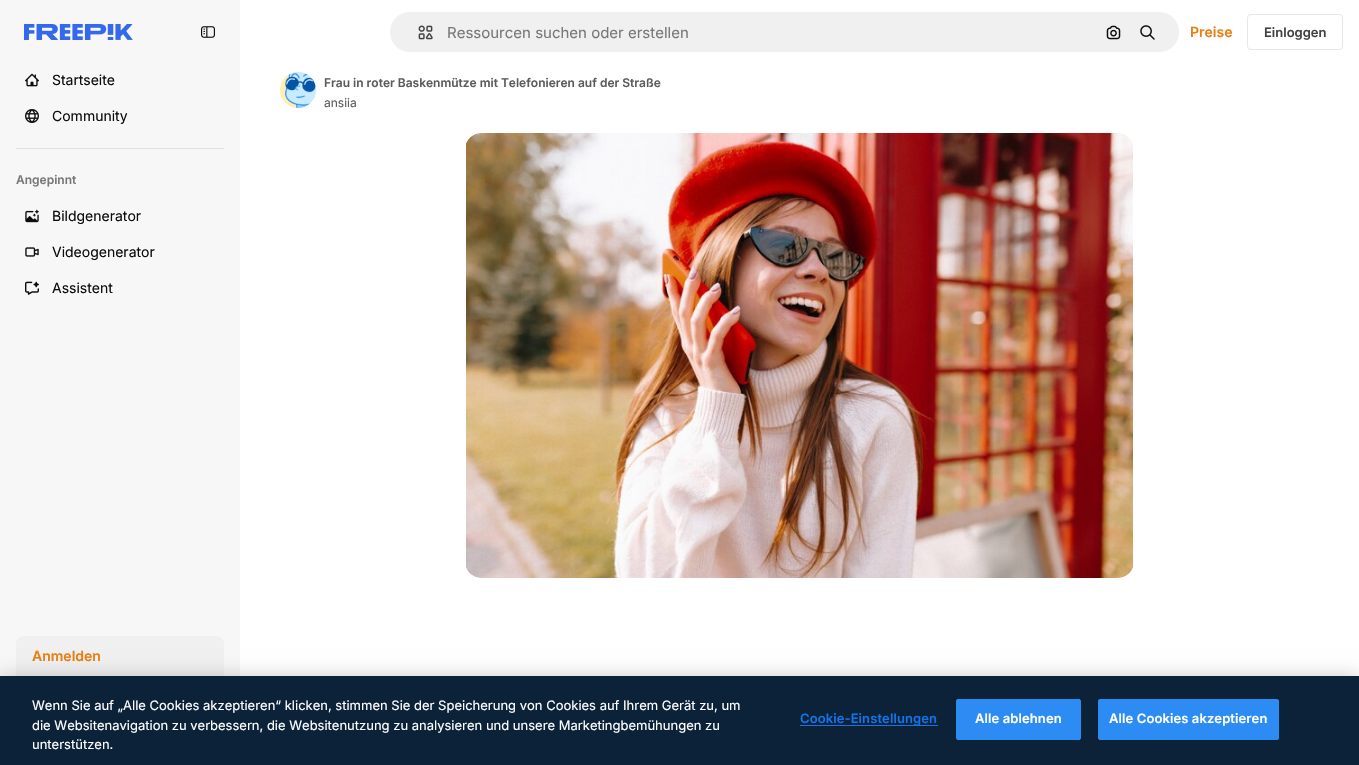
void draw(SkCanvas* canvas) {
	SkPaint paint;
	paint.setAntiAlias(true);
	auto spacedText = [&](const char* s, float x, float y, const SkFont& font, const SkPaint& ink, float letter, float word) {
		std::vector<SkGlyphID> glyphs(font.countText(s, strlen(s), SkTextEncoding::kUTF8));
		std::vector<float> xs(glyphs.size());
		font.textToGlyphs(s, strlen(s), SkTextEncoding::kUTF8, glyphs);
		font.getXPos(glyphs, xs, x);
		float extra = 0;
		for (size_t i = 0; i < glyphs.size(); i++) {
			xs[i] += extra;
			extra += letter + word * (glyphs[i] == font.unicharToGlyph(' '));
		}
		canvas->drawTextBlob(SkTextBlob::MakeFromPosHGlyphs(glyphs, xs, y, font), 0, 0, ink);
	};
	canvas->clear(0xffffffff);
	paint.setColor(0xfff7f7f7);
	canvas->drawRect(SkRect::MakeXYWH(0, 0, 240, 676), paint);
	canvas->drawImageRect(SkImages::DeferredFromEncodedData(SkData::MakeFromFileName("img1.png")), SkRect::MakeXYWH(24, 24, 109, 16), SkSamplingOptions());
	canvas->drawImageRect(SkImages::DeferredFromEncodedData(SkData::MakeFromFileName("img2.png")), SkRect::MakeXYWH(201, 26, 14, 12), SkSamplingOptions());
	canvas->drawImageRect(SkImages::DeferredFromEncodedData(SkData::MakeFromFileName("img3.png")), SkRect::MakeXYWH(25, 73, 14, 14), SkSamplingOptions());
	SkFont f1(fontMgr->matchFamilyStyle("Inter", SkFontStyle::Normal()), 14);
	f1.setSubpixel(true);
	paint.setColor(0xff0d0d0d);
	canvas->drawString("Startseite", 52, 85, f1, paint);
	canvas->drawImageRect(SkImages::DeferredFromEncodedData(SkData::MakeFromFileName("img4.png")), SkRect::MakeXYWH(25, 109, 14, 14), SkSamplingOptions());
	canvas->drawString("Community", 52, 121, f1, paint);
	paint.setColor(0xffe0e0e0);
	canvas->drawRect(SkRect::MakeXYWH(16, 148, 208, 1), paint);
	SkFont f2(fontMgr->matchFamilyStyle("Inter", SkFontStyle(600, SkFontStyle::kNormal_Width, SkFontStyle::kUpright_Slant)), 12);
	f2.setSubpixel(true);
	paint.setColor(0xff787878);
	canvas->drawString("Angepinnt", 16, 184, f2, paint);
	canvas->drawImageRect(SkImages::DeferredFromEncodedData(SkData::MakeFromFileName("img5.png")), SkRect::MakeXYWH(25, 209, 14, 14), SkSamplingOptions());
	paint.setColor(0xff0d0d0d);
	canvas->drawString("Bildgenerator", 52, 221, f1, paint);
	canvas->drawImageRect(SkImages::DeferredFromEncodedData(SkData::MakeFromFileName("img6.png")), SkRect::MakeXYWH(25, 247, 14, 10), SkSamplingOptions());
	canvas->drawString("Videogenerator", 52, 257, f1, paint);
	canvas->drawImageRect(SkImages::DeferredFromEncodedData(SkData::MakeFromFileName("img7.png")), SkRect::MakeXYWH(25, 281, 14, 14), SkSamplingOptions());
	canvas->drawString("Assistent", 52, 293, f1, paint);
	paint.setColor(0xfff0f0f0);
	canvas->drawRoundRect(SkRect::MakeXYWH(16, 636, 208, 65), 8, 8, paint);
	SkFont f3(fontMgr->matchFamilyStyle("Inter", SkFontStyle(600, SkFontStyle::kNormal_Width, SkFontStyle::kUpright_Slant)), 14);
	f3.setSubpixel(true);
	paint.setColor(0xffea7e11);
	canvas->drawString("Anmelden", 32, 661, f3, paint);
	paint.setColor(0xfff0f0f0);
	canvas->drawRoundRect(SkRect::MakeXYWH(389.5, 11.5, 790, 41), 20.5, 20.5, paint);
	paint.setStroke(true);
	paint.setStrokeWidth(1);
	paint.setColor(0xffffffff);
	canvas->drawRoundRect(SkRect::MakeXYWH(389.5, 11.5, 790, 41), 20.5, 20.5, paint);
	canvas->drawImageRect(SkImages::DeferredFromEncodedData(SkData::MakeFromFileName("img8.png")), SkRect::MakeXYWH(418, 25, 15, 15), SkSamplingOptions());
	SkFont f4(fontMgr->matchFamilyStyle("Inter", SkFontStyle::Normal()), 15);
	f4.setSubpixel(true);
	paint.setStroke(false);
	paint.setColor(0xff787878);
	canvas->drawString("Ressourcen suchen oder erstellen", 447, 38, f4, paint);
	canvas->drawImageRect(SkImages::DeferredFromEncodedData(SkData::MakeFromFileName("img9.png")), SkRect::MakeXYWH(1106, 25, 15, 15), SkSamplingOptions());
	canvas->drawImageRect(SkImages::DeferredFromEncodedData(SkData::MakeFromFileName("img10.png")), SkRect::MakeXYWH(1140, 25, 15, 15), SkSamplingOptions());
	paint.setColor(0xffea7e11);
	canvas->drawString("Preise", 1190, 37, f3, paint);
	paint.setStroke(true);
	paint.setColor(0xffe7e7e7);
	canvas->drawRoundRect(SkRect::MakeXYWH(1247.5, 14.5, 95, 35), 3.5, 3.5, paint);
	SkFont f5(fontMgr->matchFamilyStyle("Inter", SkFontStyle(600, SkFontStyle::kNormal_Width, SkFontStyle::kUpright_Slant)), 13);
	f5.setSubpixel(true);
	paint.setStroke(false);
	paint.setColor(0xff424242);
	canvas->drawString("Einloggen", 1264, 37, f5, paint);
	canvas->drawImageRect(SkImages::DeferredFromEncodedData(SkData::MakeFromFileName("img11.png")), SkRect::MakeXYWH(280, 72, 36, 36), SkSamplingOptions());
	paint.setColor(0xff5c5c5c);
	canvas->drawString("Frau in roter Baskenmütze mit Telefonieren auf der Straße", 324, 87, f2, paint);
	SkFont f6(fontMgr->matchFamilyStyle("Inter", SkFontStyle::Normal()), 12);
	f6.setSubpixel(true);
	canvas->drawString("ansiia", 324, 107, f6, paint);
	canvas->drawImageRect(SkImages::DeferredFromEncodedData(SkData::MakeFromFileName("img12.png")), SkRect::MakeXYWH(466, 133, 667, 445), SkSamplingOptions());
	paint.setColor(0x33000000);
	paint.setMaskFilter(SkMaskFilter::MakeBlur(kNormal_SkBlurStyle, 9));
	canvas->drawRect(SkRect::MakeXYWH(0, 676, 1359, 89), paint);
	paint.setMaskFilter(nullptr);
	paint.setColor(0xff0b2239);
	canvas->drawRect(SkRect::MakeXYWH(0, 676, 1359, 89), paint);
	SkFont f7(fontMgr->matchFamilyStyle("Inter", SkFontStyle::Normal()), 13);
	f7.setSubpixel(true);
	paint.setColor(0xffffffff);
	canvas->drawString("Wenn Sie auf „Alle Cookies akzeptieren“ klicken, stimmen Sie der Speicherung von Cookies auf Ihrem Gerät zu, um", 32, 710, f7, paint);
	canvas->drawString("die Websitenavigation zu verbessern, die Websitenutzung zu analysieren und unsere Marketingbemühungen zu", 32, 730, f7, paint);
	canvas->drawString("unterstützen.", 32, 749, f7, paint);
	paint.setColor(0xff1273eb);
	canvas->drawRect(SkRect::MakeXYWH(800, 725, 138, 1), paint);
	spacedText("Cookie-Einstellungen", 800, 723, f5, paint, 0.1, 0);
	paint.setColor(0xff2c8cf4);
	canvas->drawRoundRect(SkRect::MakeXYWH(956.5, 699.5, 124, 40), 1.5, 1.5, paint);
	paint.setStroke(true);
	canvas->drawRoundRect(SkRect::MakeXYWH(956.5, 699.5, 124, 40), 1.5, 1.5, paint);
	paint.setStroke(false);
	paint.setColor(0xffffffff);
	spacedText("Alle ablehnen", 975, 723, f5, paint, 0.1, 0);
	paint.setColor(0xff2c8cf4);
	canvas->drawRoundRect(SkRect::MakeXYWH(1098.5, 699.5, 180, 40), 1.5, 1.5, paint);
	paint.setStroke(true);
	canvas->drawRoundRect(SkRect::MakeXYWH(1098.5, 699.5, 180, 40), 1.5, 1.5, paint);
	paint.setStroke(false);
	paint.setColor(0xffffffff);
	spacedText("Alle Cookies akzeptieren", 1109, 723, f5, paint, 0.1, 0);
}
